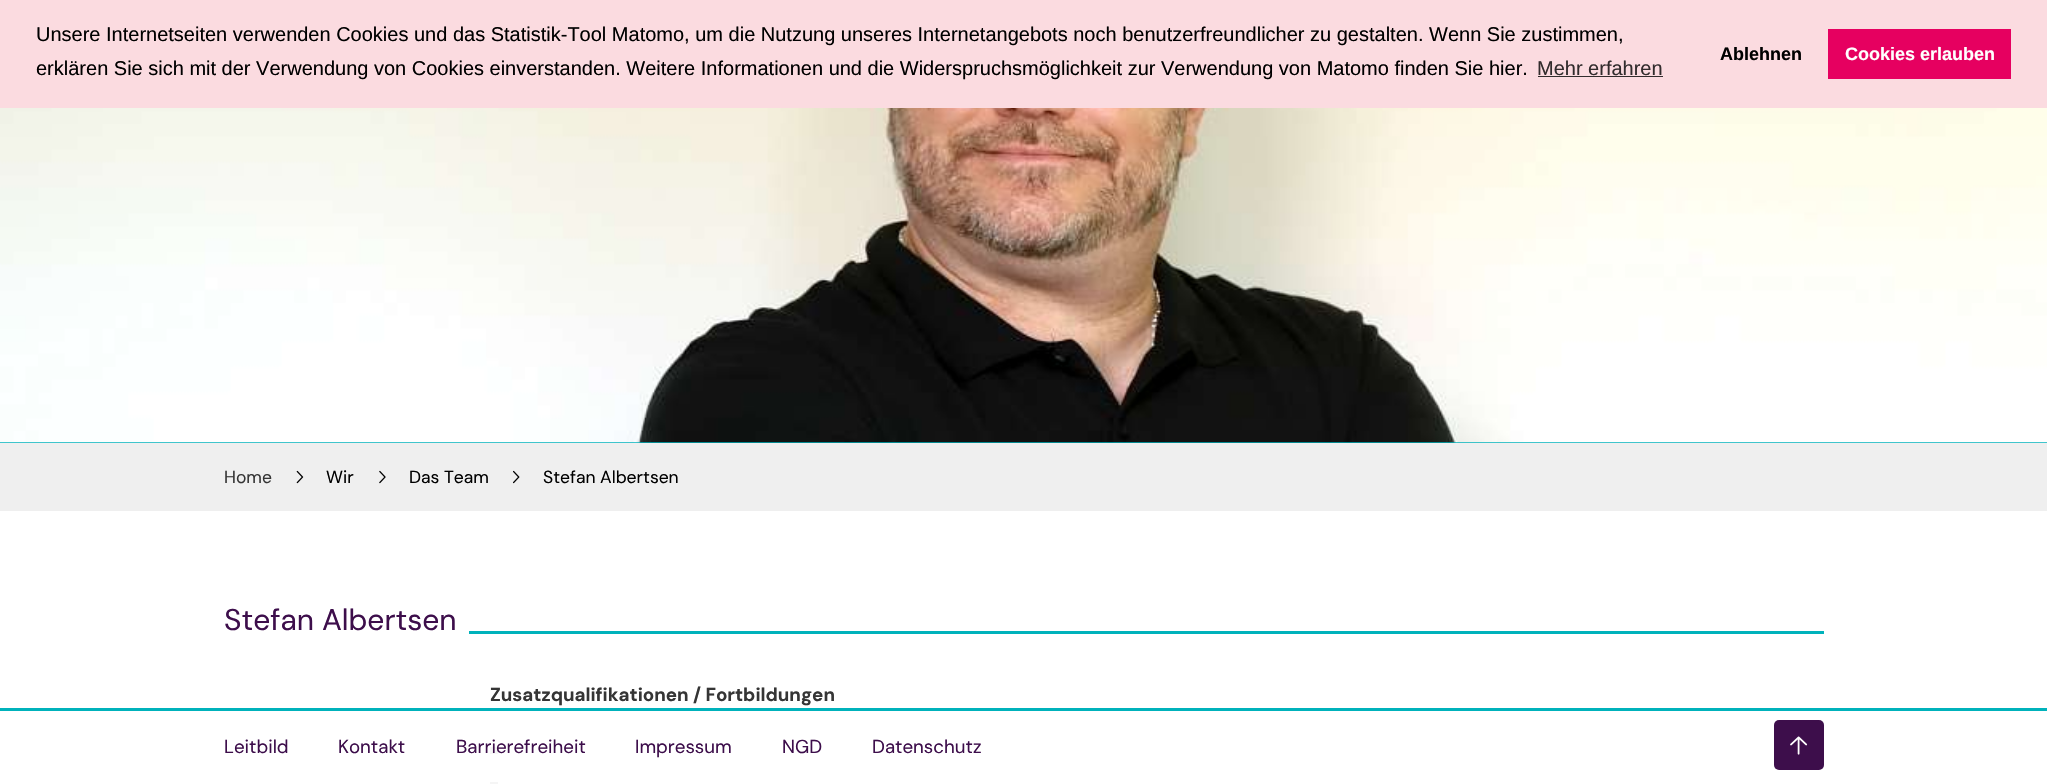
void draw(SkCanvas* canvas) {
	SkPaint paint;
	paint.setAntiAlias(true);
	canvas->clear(0xffffffff);
	paint.setColor(0xfffbdbe0);
	canvas->drawRect(SkRect::MakeXYWH(0, 0, 2047, 108), paint);
	SkFont f1(fontMgr->matchFamilyStyle("Liberation Sans", SkFontStyle::Normal()), 20);
	f1.setSubpixel(true);
	paint.setColor(0xff000000);
	canvas->drawString("Unsere Internetseiten verwenden Cookies und das Statistik-Tool Matomo, um die Nutzung unseres Internetangebots noch benutzerfreundlicher zu gestalten. Wenn Sie zustimmen,", 36, 41, f1, paint);
	canvas->drawString("erklären Sie sich mit der Verwendung von Cookies einverstanden. Weitere Informationen und die Widerspruchsmöglichkeit zur Verwendung von Matomo finden Sie hier.", 36, 75, f1, paint);
	paint.setColor(0xff322c2d);
	canvas->drawString("Mehr erfahren", 1537, 75, f1, paint);
	canvas->drawRect(SkRect::MakeXYWH(1538, 76, 125, 1), paint);
	SkFont f2(fontMgr->matchFamilyStyle("Liberation Sans", SkFontStyle::Bold()), 18);
	f2.setSubpixel(true);
	paint.setColor(0xff000000);
	canvas->drawString("Ablehnen", 1720, 60, f2, paint);
	paint.setColor(0xffe60060);
	canvas->drawRect(SkRect::MakeXYWH(1828, 29, 183, 50), paint);
	paint.setColor(0xffffffff);
	canvas->drawString("Cookies erlauben", 1845, 60, f2, paint);
	paint.setColor(0xff00b2bb);
	canvas->drawRect(SkRect::MakeXYWH(0, 442, 2047, 1), paint);
	canvas->drawImageRect(SkImages::DeferredFromEncodedData(SkData::MakeFromFileName("img1.png")), SkRect::MakeXYWH(0, 108, 2047, 335), SkSamplingOptions());
	paint.setColor(0xffefefef);
	canvas->drawRect(SkRect::MakeXYWH(0, 443, 2047, 68), paint);
	SkFont f3(fontMgr->matchFamilyStyle("DM Sans", SkFontStyle::Normal()), 17.5);
	f3.setSubpixel(true);
	paint.setColor(0xff353535);
	canvas->drawString("Home", 224, 483, f3, paint);
	canvas->drawImageRect(SkImages::DeferredFromEncodedData(SkData::MakeFromFileName("img2.png")), SkRect::MakeXYWH(296, 470, 8, 14), SkSamplingOptions());
	paint.setColor(0xff000000);
	canvas->drawString("Wir", 326, 483, f3, paint);
	canvas->drawImageRect(SkImages::DeferredFromEncodedData(SkData::MakeFromFileName("img3.png")), SkRect::MakeXYWH(379, 470, 7, 14), SkSamplingOptions());
	canvas->drawString("Das Team", 409, 483, f3, paint);
	canvas->drawImageRect(SkImages::DeferredFromEncodedData(SkData::MakeFromFileName("img4.png")), SkRect::MakeXYWH(513, 470, 7, 14), SkSamplingOptions());
	canvas->drawString("Stefan Albertsen", 543, 483, f3, paint);
	SkFont f4(fontMgr->matchFamilyStyle("DM Sans", SkFontStyle::Normal()), 30);
	f4.setSubpixel(true);
	paint.setColor(0xff3d0e4b);
	canvas->drawString("Stefan Albertsen", 224, 630, f4, paint);
	paint.setColor(0xff00b2bb);
	canvas->drawRect(SkRect::MakeXYWH(469, 631, 1355, 3), paint);
	SkFont f5(fontMgr->matchFamilyStyle("DM Sans", SkFontStyle::Bold()), 18.75);
	f5.setSubpixel(true);
	paint.setColor(0xff353535);
	canvas->drawString("Zusatzqualifikationen / Fortbildungen", 490, 701, f5, paint);
	paint.setColor(0xfff5f5f5);
	canvas->drawRect(SkRect::MakeXYWH(490, 747, 8, 7), paint);
	canvas->drawRect(SkRect::MakeXYWH(490, 782, 8, 2), paint);
	paint.setColor(0xff00b2bb);
	canvas->drawRect(SkRect::MakeXYWH(0, 708, 2047, 3), paint);
	SkFont f6(fontMgr->matchFamilyStyle("DM Sans", SkFontStyle::Normal()), 18.75);
	f6.setSubpixel(true);
	paint.setColor(0xff3d0e4b);
	canvas->drawString("Leitbild", 224, 753, f6, paint);
	canvas->drawString("Kontakt", 338, 753, f6, paint);
	canvas->drawString("Barrierefreiheit", 456, 753, f6, paint);
	canvas->drawString("Impressum", 635, 753, f6, paint);
	canvas->drawString("NGD", 782, 753, f6, paint);
	canvas->drawString("Datenschutz", 872, 753, f6, paint);
	canvas->drawRoundRect(SkRect::MakeXYWH(1774, 720, 50, 50), 5, 5, paint);
	canvas->drawImageRect(SkImages::DeferredFromEncodedData(SkData::MakeFromFileName("img5.png")), SkRect::MakeXYWH(1790, 736, 18, 19), SkSamplingOptions());
}
